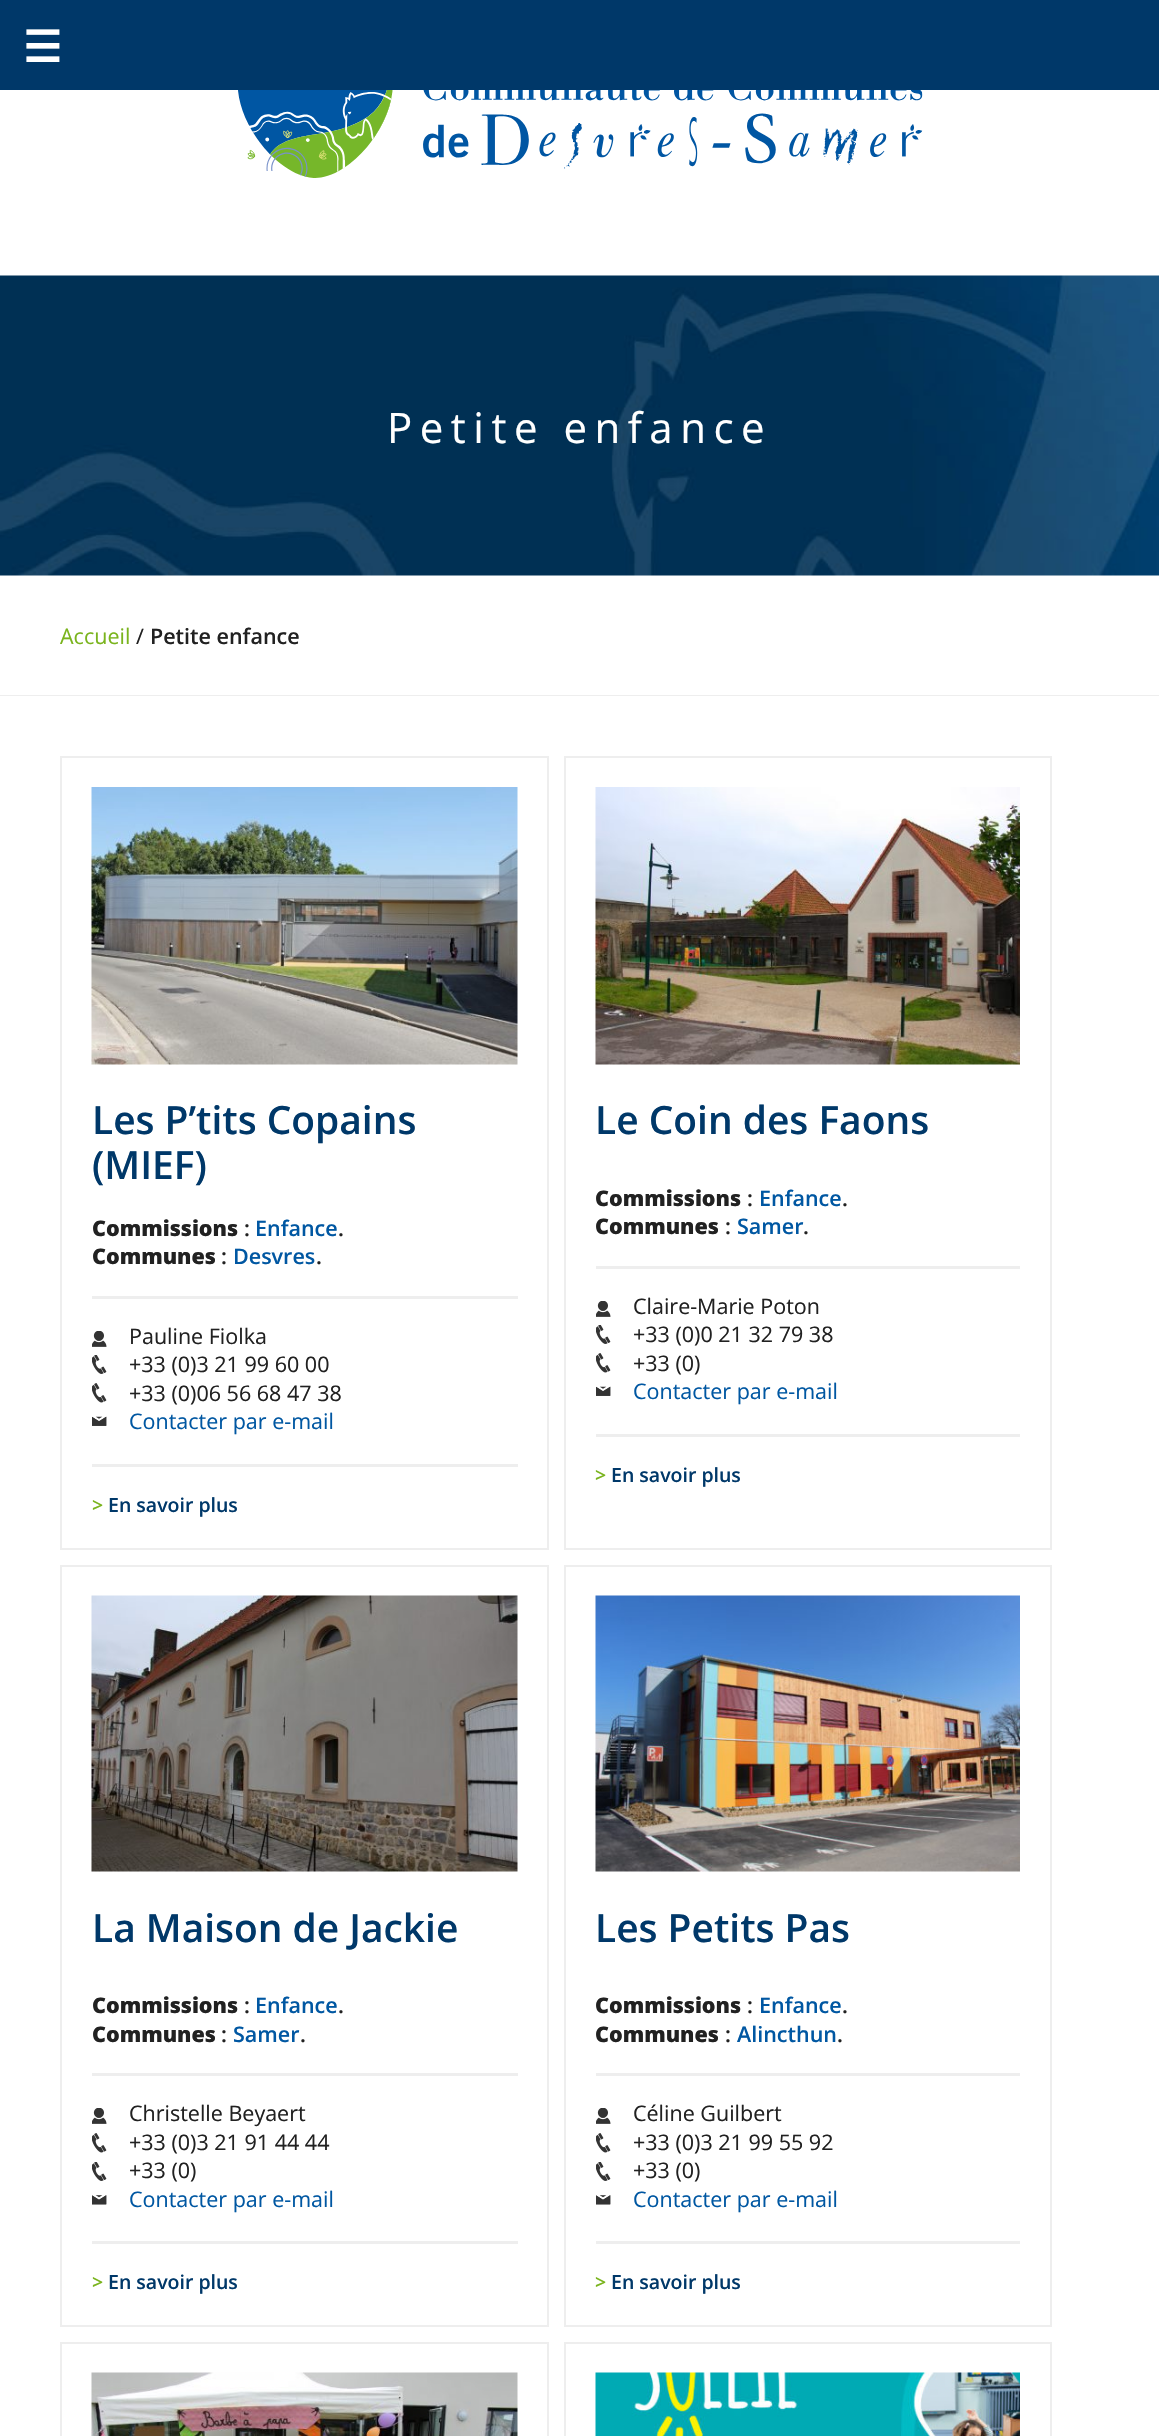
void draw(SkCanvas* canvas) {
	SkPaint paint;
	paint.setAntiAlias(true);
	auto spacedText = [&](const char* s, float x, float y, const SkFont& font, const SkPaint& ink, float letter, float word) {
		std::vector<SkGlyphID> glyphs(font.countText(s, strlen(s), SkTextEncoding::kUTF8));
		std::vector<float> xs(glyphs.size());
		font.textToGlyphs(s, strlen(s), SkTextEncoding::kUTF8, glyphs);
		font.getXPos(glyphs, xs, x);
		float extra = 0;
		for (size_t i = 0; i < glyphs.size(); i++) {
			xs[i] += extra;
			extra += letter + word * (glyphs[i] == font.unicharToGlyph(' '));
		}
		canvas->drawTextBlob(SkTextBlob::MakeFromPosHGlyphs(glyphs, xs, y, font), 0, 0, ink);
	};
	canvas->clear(0xffffffff);
	paint.setColor(0xff003869);
	canvas->drawRect(SkRect::MakeXYWH(0, 0, 1159, 90), paint);
	SkFont f1(fontMgr->matchFamilyStyle("DejaVu Sans", SkFontStyle::Bold()), 43);
	f1.setSubpixel(true);
	paint.setColor(0xffffffff);
	canvas->drawString("☰", 23, 62, f1, paint);
	canvas->drawImageRect(SkImages::DeferredFromEncodedData(SkData::MakeFromFileName("img1.png")), SkRect::MakeXYWH(237, 90, 686, 88), SkSamplingOptions());
	canvas->drawImageRect(SkImages::DeferredFromEncodedData(SkData::MakeFromFileName("img2.png")), SkRect::MakeXYWH(0, 275, 1159, 301), SkSamplingOptions());
	SkFont f2(fontMgr->matchFamilyStyle("Open Sans", SkFontStyle::Normal()), 42);
	f2.setSubpixel(true);
	spacedText("Petite enfance", 387, 443, f2, paint, 7.5, 0);
	paint.setColor(0xffeeeeee);
	canvas->drawRect(SkRect::MakeXYWH(0, 695, 1159, 1), paint);
	SkFont f3(fontMgr->matchFamilyStyle("Open Sans", SkFontStyle::Normal()), 21.5);
	f3.setSubpixel(true);
	paint.setColor(0xff7ab41d);
	canvas->drawString("Accueil", 60, 644, f3, paint);
	paint.setColor(0xff212121);
	canvas->drawString("/", 136, 644, f3, paint);
	SkFont f4(fontMgr->matchFamilyStyle("Open Sans", SkFontStyle(600, SkFontStyle::kNormal_Width, SkFontStyle::kUpright_Slant)), 21.5);
	f4.setSubpixel(true);
	canvas->drawString("Petite enfance", 150, 644, f4, paint);
	paint.setStroke(true);
	paint.setStrokeWidth(2);
	paint.setColor(0xffeeeeee);
	canvas->drawRect(SkRect::MakeXYWH(61, 757, 487, 792), paint);
	canvas->drawImageRect(SkImages::DeferredFromEncodedData(SkData::MakeFromFileName("img3.png")), SkRect::MakeXYWH(91, 787, 427, 278), SkSamplingOptions());
	SkFont f5(fontMgr->matchFamilyStyle("Open Sans", SkFontStyle(600, SkFontStyle::kNormal_Width, SkFontStyle::kUpright_Slant)), 38.9);
	f5.setSubpixel(true);
	paint.setStroke(false);
	paint.setColor(0xff003869);
	canvas->drawString("Les P’tits Copains", 92, 1134, f5, paint);
	canvas->drawString("(MIEF)", 92, 1179, f5, paint);
	SkFont f6(fontMgr->matchFamilyStyle("Open Sans", SkFontStyle(800, SkFontStyle::kNormal_Width, SkFontStyle::kUpright_Slant)), 21.5);
	f6.setSubpixel(true);
	paint.setColor(0xff212121);
	canvas->drawString("Commissions", 92, 1236, f6, paint);
	canvas->drawString(":", 244, 1236, f4, paint);
	paint.setColor(0xff0057a2);
	canvas->drawString("Enfance", 255, 1236, f4, paint);
	paint.setColor(0xff212121);
	canvas->drawString(".", 338, 1236, f4, paint);
	canvas->drawString("Communes", 92, 1264, f6, paint);
	canvas->drawString(":", 221, 1264, f4, paint);
	paint.setColor(0xff0057a2);
	canvas->drawString("Desvres", 233, 1264, f4, paint);
	paint.setColor(0xff212121);
	canvas->drawString(".", 316, 1264, f4, paint);
	paint.setColor(0xffeeeeee);
	canvas->drawRect(SkRect::MakeXYWH(92, 1296, 426, 3), paint);
	canvas->drawImageRect(SkImages::DeferredFromEncodedData(SkData::MakeFromFileName("img4.png")), SkRect::MakeXYWH(92, 1331, 15, 16), SkSamplingOptions());
	paint.setColor(0xff212121);
	canvas->drawString("Pauline Fiolka", 129, 1344, f3, paint);
	canvas->drawImageRect(SkImages::DeferredFromEncodedData(SkData::MakeFromFileName("img5.png")), SkRect::MakeXYWH(92, 1355, 15, 19), SkSamplingOptions());
	canvas->drawString("+33 (0)3 21 99 60 00", 129, 1372, f3, paint);
	canvas->drawImageRect(SkImages::DeferredFromEncodedData(SkData::MakeFromFileName("img6.png")), SkRect::MakeXYWH(92, 1383, 15, 20), SkSamplingOptions());
	canvas->drawString("+33 (0)06 56 68 47 38", 129, 1401, f3, paint);
	canvas->drawImageRect(SkImages::DeferredFromEncodedData(SkData::MakeFromFileName("img7.png")), SkRect::MakeXYWH(92, 1416, 15, 10), SkSamplingOptions());
	paint.setColor(0xff0057a2);
	canvas->drawString("Contacter par e-mail", 129, 1429, f3, paint);
	paint.setColor(0xffeeeeee);
	canvas->drawRect(SkRect::MakeXYWH(92, 1464, 426, 3), paint);
	SkFont f7(fontMgr->matchFamilyStyle("Open Sans", SkFontStyle(600, SkFontStyle::kNormal_Width, SkFontStyle::kUpright_Slant)), 19.5);
	f7.setSubpixel(true);
	paint.setColor(0xff7ab41d);
	canvas->drawString(">", 92, 1512, f7, paint);
	paint.setColor(0xff003869);
	canvas->drawString("En savoir plus", 108, 1512, f7, paint);
	paint.setStroke(true);
	paint.setColor(0xffeeeeee);
	canvas->drawRect(SkRect::MakeXYWH(565, 757, 486, 792), paint);
	canvas->drawImageRect(SkImages::DeferredFromEncodedData(SkData::MakeFromFileName("img8.png")), SkRect::MakeXYWH(595, 787, 425, 278), SkSamplingOptions());
	paint.setStroke(false);
	paint.setColor(0xff003869);
	canvas->drawString("Le Coin des Faons", 595, 1134, f5, paint);
	paint.setColor(0xff212121);
	canvas->drawString("Commissions", 595, 1206, f6, paint);
	canvas->drawString(":", 747, 1206, f4, paint);
	paint.setColor(0xff0057a2);
	canvas->drawString("Enfance", 759, 1206, f4, paint);
	paint.setColor(0xff212121);
	canvas->drawString(".", 842, 1206, f4, paint);
	canvas->drawString("Communes", 595, 1234, f6, paint);
	canvas->drawString(":", 725, 1234, f4, paint);
	paint.setColor(0xff0057a2);
	canvas->drawString("Samer", 737, 1234, f4, paint);
	paint.setColor(0xff212121);
	canvas->drawString(".", 803, 1234, f4, paint);
	paint.setColor(0xffeeeeee);
	canvas->drawRect(SkRect::MakeXYWH(596, 1266, 424, 3), paint);
	canvas->drawImageRect(SkImages::DeferredFromEncodedData(SkData::MakeFromFileName("img4.png")), SkRect::MakeXYWH(596, 1301, 15, 16), SkSamplingOptions());
	paint.setColor(0xff212121);
	canvas->drawString("Claire-Marie Poton", 633, 1314, f3, paint);
	canvas->drawImageRect(SkImages::DeferredFromEncodedData(SkData::MakeFromFileName("img5.png")), SkRect::MakeXYWH(596, 1325, 15, 19), SkSamplingOptions());
	canvas->drawString("+33 (0)0 21 32 79 38", 633, 1342, f3, paint);
	canvas->drawImageRect(SkImages::DeferredFromEncodedData(SkData::MakeFromFileName("img6.png")), SkRect::MakeXYWH(596, 1353, 15, 20), SkSamplingOptions());
	canvas->drawString("+33 (0)", 633, 1371, f3, paint);
	canvas->drawImageRect(SkImages::DeferredFromEncodedData(SkData::MakeFromFileName("img7.png")), SkRect::MakeXYWH(596, 1386, 15, 10), SkSamplingOptions());
	paint.setColor(0xff0057a2);
	canvas->drawString("Contacter par e-mail", 633, 1399, f3, paint);
	paint.setColor(0xffeeeeee);
	canvas->drawRect(SkRect::MakeXYWH(596, 1434, 424, 3), paint);
	paint.setColor(0xff7ab41d);
	canvas->drawString(">", 595, 1482, f7, paint);
	paint.setColor(0xff003869);
	canvas->drawString("En savoir plus", 611, 1482, f7, paint);
	paint.setStroke(true);
	paint.setColor(0xffeeeeee);
	canvas->drawRect(SkRect::MakeXYWH(61, 1566, 487, 760), paint);
	canvas->drawImageRect(SkImages::DeferredFromEncodedData(SkData::MakeFromFileName("img9.png")), SkRect::MakeXYWH(91, 1595, 427, 277), SkSamplingOptions());
	paint.setStroke(false);
	paint.setColor(0xff003869);
	canvas->drawString("La Maison de Jackie", 92, 1942, f5, paint);
	paint.setColor(0xff212121);
	canvas->drawString("Commissions", 92, 2013, f6, paint);
	canvas->drawString(":", 244, 2013, f4, paint);
	paint.setColor(0xff0057a2);
	canvas->drawString("Enfance", 255, 2013, f4, paint);
	paint.setColor(0xff212121);
	canvas->drawString(".", 338, 2013, f4, paint);
	canvas->drawString("Communes", 92, 2042, f6, paint);
	canvas->drawString(":", 221, 2042, f4, paint);
	paint.setColor(0xff0057a2);
	canvas->drawString("Samer", 233, 2042, f4, paint);
	paint.setColor(0xff212121);
	canvas->drawString(".", 300, 2042, f4, paint);
	paint.setColor(0xffeeeeee);
	canvas->drawRect(SkRect::MakeXYWH(92, 2073, 426, 3), paint);
	canvas->drawImageRect(SkImages::DeferredFromEncodedData(SkData::MakeFromFileName("img4.png")), SkRect::MakeXYWH(92, 2108, 15, 16), SkSamplingOptions());
	paint.setColor(0xff212121);
	canvas->drawString("Christelle Beyaert", 129, 2121, f3, paint);
	canvas->drawImageRect(SkImages::DeferredFromEncodedData(SkData::MakeFromFileName("img6.png")), SkRect::MakeXYWH(92, 2133, 15, 20), SkSamplingOptions());
	canvas->drawString("+33 (0)3 21 91 44 44", 129, 2150, f3, paint);
	canvas->drawImageRect(SkImages::DeferredFromEncodedData(SkData::MakeFromFileName("img5.png")), SkRect::MakeXYWH(92, 2162, 15, 19), SkSamplingOptions());
	canvas->drawString("+33 (0)", 129, 2178, f3, paint);
	canvas->drawImageRect(SkImages::DeferredFromEncodedData(SkData::MakeFromFileName("img10.png")), SkRect::MakeXYWH(92, 2195, 15, 10), SkSamplingOptions());
	paint.setColor(0xff0057a2);
	canvas->drawString("Contacter par e-mail", 129, 2207, f3, paint);
	paint.setColor(0xffeeeeee);
	canvas->drawRect(SkRect::MakeXYWH(92, 2241, 426, 3), paint);
	paint.setColor(0xff7ab41d);
	canvas->drawString(">", 92, 2289, f7, paint);
	paint.setColor(0xff003869);
	canvas->drawString("En savoir plus", 108, 2289, f7, paint);
	paint.setStroke(true);
	paint.setColor(0xffeeeeee);
	canvas->drawRect(SkRect::MakeXYWH(565, 1566, 486, 760), paint);
	canvas->drawImageRect(SkImages::DeferredFromEncodedData(SkData::MakeFromFileName("img11.png")), SkRect::MakeXYWH(595, 1595, 425, 277), SkSamplingOptions());
	paint.setStroke(false);
	paint.setColor(0xff003869);
	canvas->drawString("Les Petits Pas", 595, 1942, f5, paint);
	paint.setColor(0xff212121);
	canvas->drawString("Commissions", 595, 2013, f6, paint);
	canvas->drawString(":", 747, 2013, f4, paint);
	paint.setColor(0xff0057a2);
	canvas->drawString("Enfance", 759, 2013, f4, paint);
	paint.setColor(0xff212121);
	canvas->drawString(".", 842, 2013, f4, paint);
	canvas->drawString("Communes", 595, 2042, f6, paint);
	canvas->drawString(":", 725, 2042, f4, paint);
	paint.setColor(0xff0057a2);
	canvas->drawString("Alincthun", 737, 2042, f4, paint);
	paint.setColor(0xff212121);
	canvas->drawString(".", 837, 2042, f4, paint);
	paint.setColor(0xffeeeeee);
	canvas->drawRect(SkRect::MakeXYWH(596, 2073, 424, 3), paint);
	canvas->drawImageRect(SkImages::DeferredFromEncodedData(SkData::MakeFromFileName("img4.png")), SkRect::MakeXYWH(596, 2108, 15, 16), SkSamplingOptions());
	paint.setColor(0xff212121);
	canvas->drawString("Céline Guilbert", 633, 2121, f3, paint);
	canvas->drawImageRect(SkImages::DeferredFromEncodedData(SkData::MakeFromFileName("img6.png")), SkRect::MakeXYWH(596, 2133, 15, 20), SkSamplingOptions());
	canvas->drawString("+33 (0)3 21 99 55 92", 633, 2150, f3, paint);
	canvas->drawImageRect(SkImages::DeferredFromEncodedData(SkData::MakeFromFileName("img5.png")), SkRect::MakeXYWH(596, 2162, 15, 19), SkSamplingOptions());
	canvas->drawString("+33 (0)", 633, 2178, f3, paint);
	canvas->drawImageRect(SkImages::DeferredFromEncodedData(SkData::MakeFromFileName("img10.png")), SkRect::MakeXYWH(596, 2195, 15, 10), SkSamplingOptions());
	paint.setColor(0xff0057a2);
	canvas->drawString("Contacter par e-mail", 633, 2207, f3, paint);
	paint.setColor(0xffeeeeee);
	canvas->drawRect(SkRect::MakeXYWH(596, 2241, 424, 3), paint);
	paint.setColor(0xff7ab41d);
	canvas->drawString(">", 595, 2289, f7, paint);
	paint.setColor(0xff003869);
	canvas->drawString("En savoir plus", 611, 2289, f7, paint);
	paint.setStroke(true);
	paint.setColor(0xffeeeeee);
	canvas->drawRect(SkRect::MakeXYWH(61, 2343, 487, 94), paint);
	canvas->drawImageRect(SkImages::DeferredFromEncodedData(SkData::MakeFromFileName("img12.png")), SkRect::MakeXYWH(91, 2372, 427, 64), SkSamplingOptions());
	canvas->drawRect(SkRect::MakeXYWH(565, 2343, 486, 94), paint);
	canvas->drawImageRect(SkImages::DeferredFromEncodedData(SkData::MakeFromFileName("img13.png")), SkRect::MakeXYWH(595, 2372, 425, 64), SkSamplingOptions());
}
